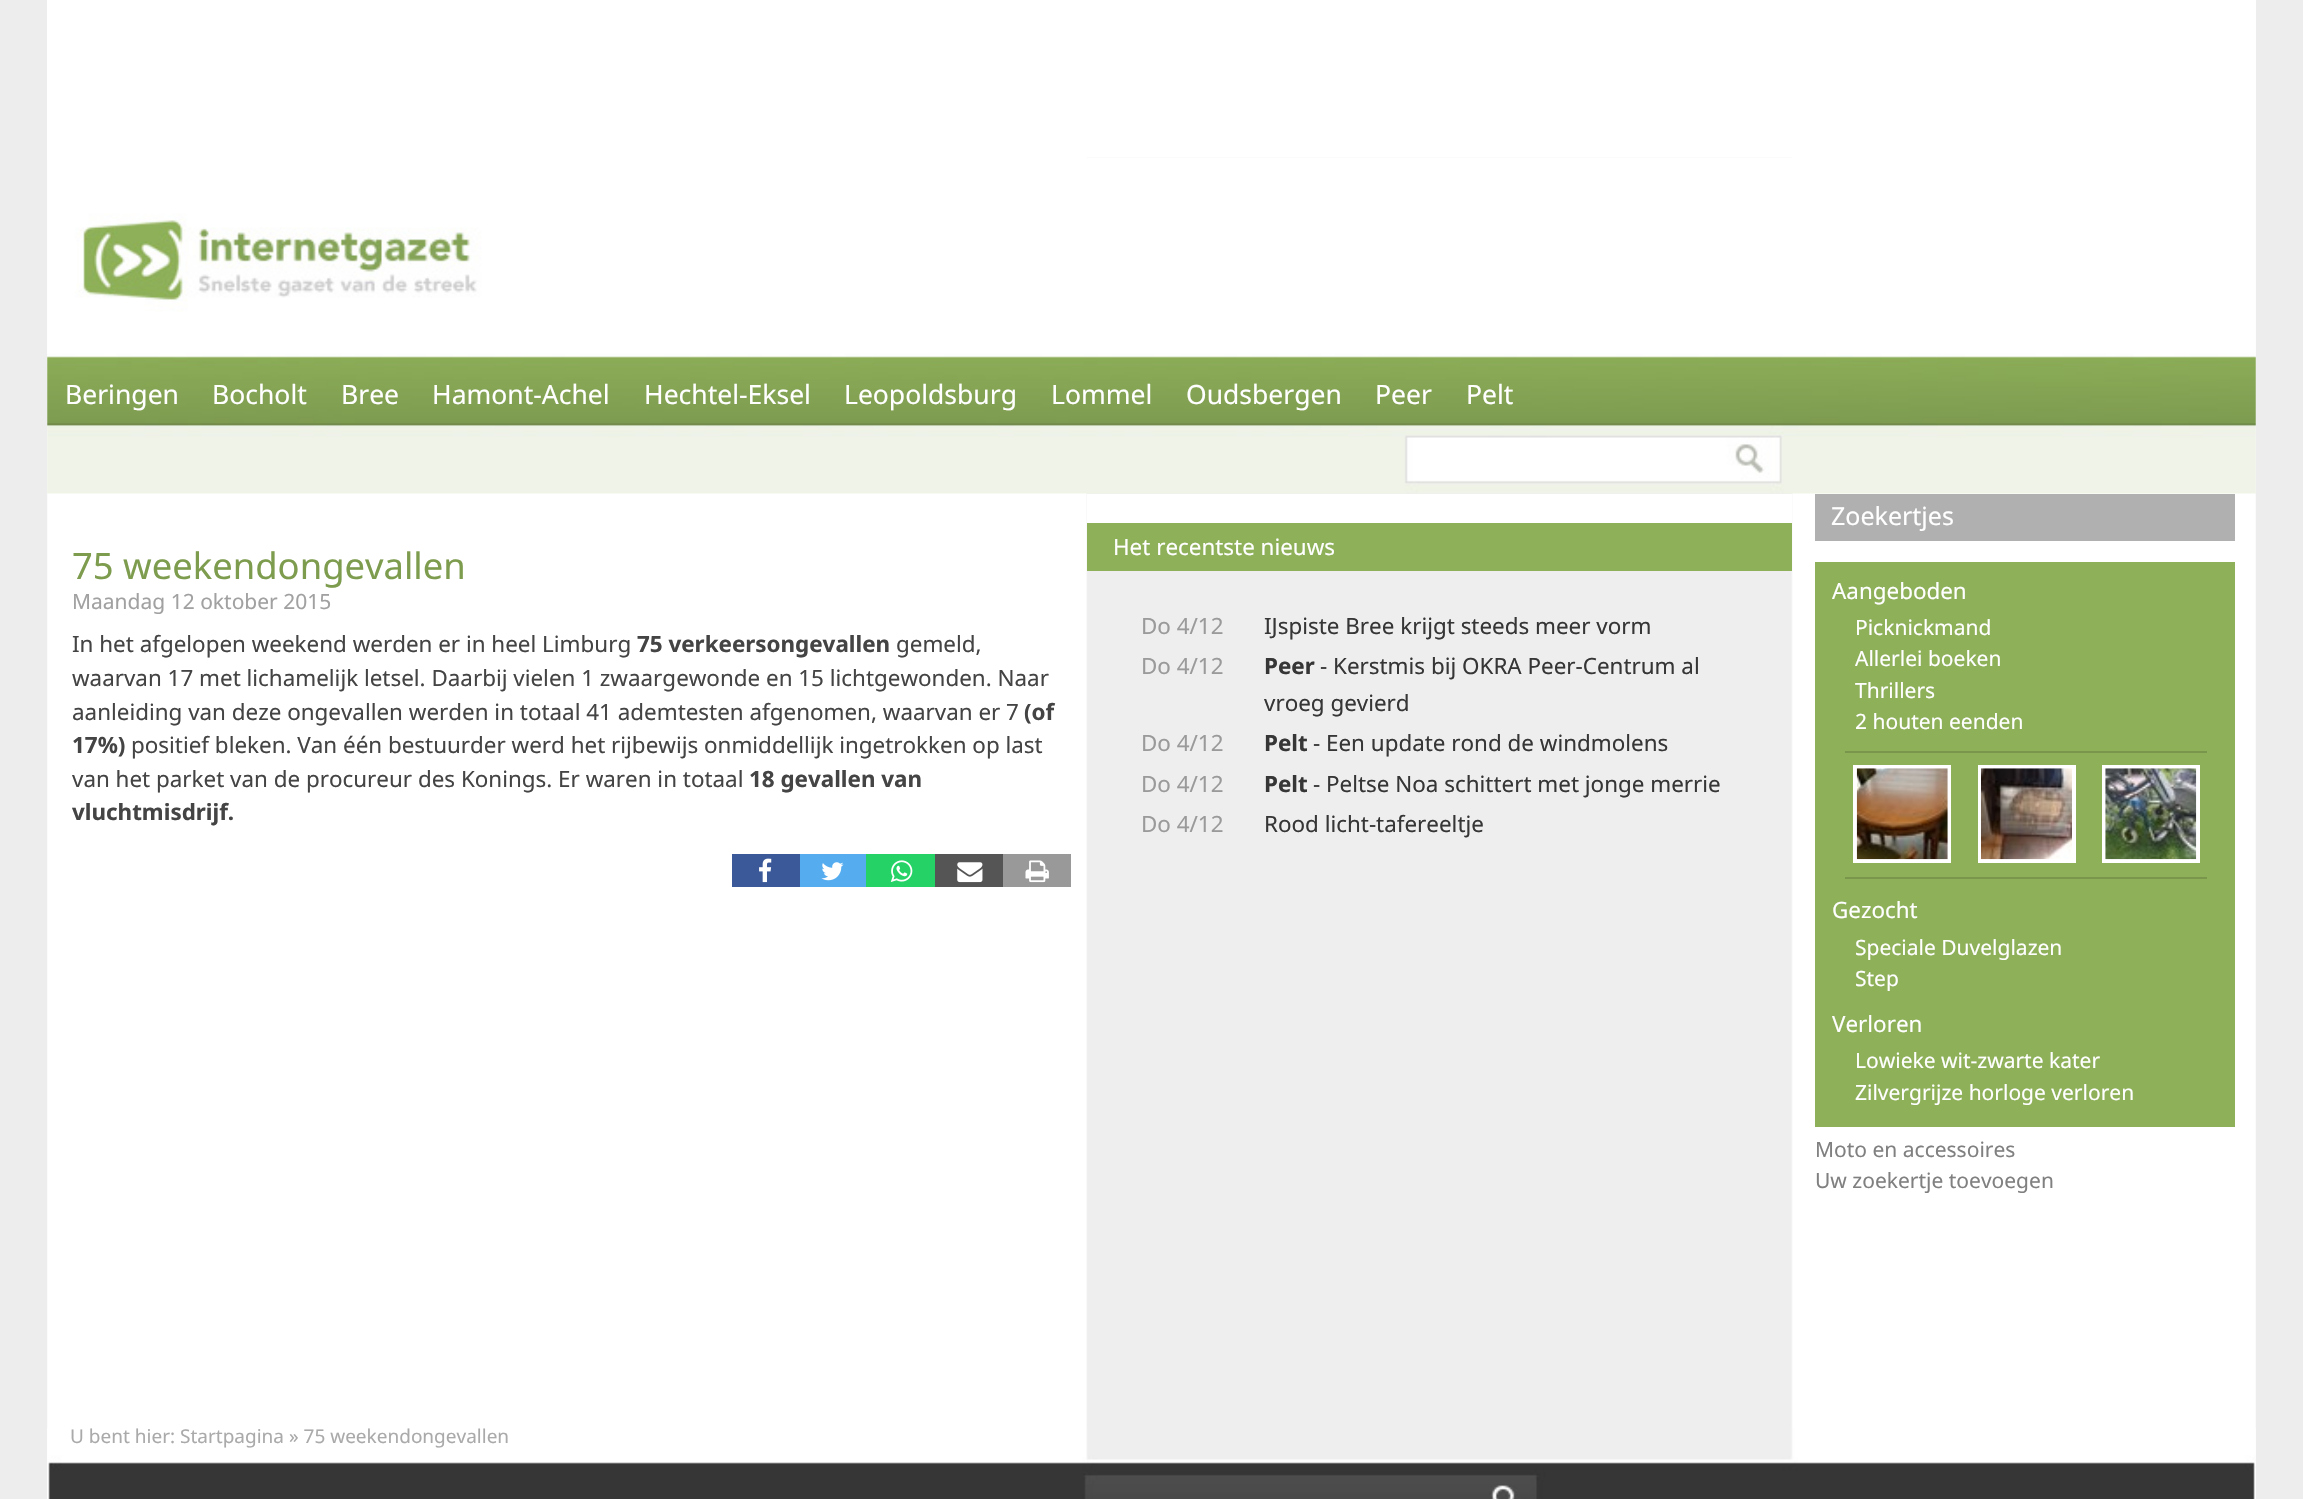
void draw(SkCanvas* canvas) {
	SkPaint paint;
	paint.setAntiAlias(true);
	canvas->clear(0xffededed);
	paint.setColor(0xffffffff);
	canvas->drawRect(SkRect::MakeXYWH(47, 0, 2209, 158), paint);
	canvas->drawImageRect(SkImages::DeferredFromEncodedData(SkData::MakeFromFileName("img1.png")), SkRect::MakeXYWH(47, 157, 2209, 1342), SkSamplingOptions());
	canvas->drawImageRect(SkImages::DeferredFromEncodedData(SkData::MakeFromFileName("img2.png")), SkRect::MakeXYWH(47, 157, 2209, 337), SkSamplingOptions());
	SkFont f1(fontMgr->matchFamilyStyle("Noto Sans", SkFontStyle::Normal()), 26.5);
	f1.setSubpixel(true);
	canvas->drawString("Beringen", 65, 404, f1, paint);
	canvas->drawString("Bocholt", 212, 404, f1, paint);
	canvas->drawString("Bree", 341, 404, f1, paint);
	canvas->drawString("Hamont-Achel", 432, 404, f1, paint);
	canvas->drawString("Hechtel-Eksel", 644, 404, f1, paint);
	canvas->drawString("Leopoldsburg", 844, 404, f1, paint);
	canvas->drawString("Lommel", 1051, 404, f1, paint);
	canvas->drawString("Oudsbergen", 1186, 404, f1, paint);
	canvas->drawString("Peer", 1375, 404, f1, paint);
	canvas->drawString("Pelt", 1466, 404, f1, paint);
	SkFont f2(fontMgr->matchFamilyStyle("Noto Sans", SkFontStyle::Normal()), 36.4);
	f2.setSubpixel(true);
	paint.setColor(0xff7d9c4e);
	canvas->drawString("75 weekendongevallen", 72, 579, f2, paint);
	SkFont f3(fontMgr->matchFamilyStyle("Noto Sans", SkFontStyle::Normal()), 21);
	f3.setSubpixel(true);
	paint.setColor(0xffa1a1a1);
	canvas->drawString("Maandag 12 oktober 2015", 72, 609, f3, paint);
	SkFont f4(fontMgr->matchFamilyStyle("Noto Sans", SkFontStyle::Normal()), 22.4);
	f4.setSubpixel(true);
	paint.setColor(0xff444444);
	canvas->drawString("In het afgelopen weekend werden er in heel Limburg", 72, 652, f4, paint);
	SkFont f5(fontMgr->matchFamilyStyle("Noto Sans", SkFontStyle::Bold()), 22.4);
	f5.setSubpixel(true);
	canvas->drawString("75 verkeersongevallen", 637, 652, f5, paint);
	canvas->drawString("gemeld,", 896, 652, f4, paint);
	canvas->drawString("waarvan 17 met lichamelijk letsel. Daarbij vielen 1 zwaargewonde en 15 lichtgewonden. Naar", 72, 686, f4, paint);
	canvas->drawString("aanleiding van deze ongevallen werden in totaal 41 ademtesten afgenomen, waarvan er 7", 72, 720, f4, paint);
	canvas->drawString("(of", 1024, 720, f5, paint);
	canvas->drawString("17%)", 72, 753, f5, paint);
	canvas->drawString("positief bleken. Van één bestuurder werd het rijbewijs onmiddellijk ingetrokken op last", 131, 753, f4, paint);
	canvas->drawString("van het parket van de procureur des Konings. Er waren in totaal", 72, 787, f4, paint);
	canvas->drawString("18 gevallen van", 749, 787, f5, paint);
	canvas->drawString("vluchtmisdrijf.", 72, 820, f5, paint);
	paint.setColor(0xff3b5998);
	canvas->drawRect(SkRect::MakeXYWH(732, 854, 68, 33), paint);
	canvas->drawImageRect(SkImages::DeferredFromEncodedData(SkData::MakeFromFileName("img3.png")), SkRect::MakeXYWH(759, 858, 13, 25), SkSamplingOptions());
	paint.setColor(0xff55acee);
	canvas->drawRect(SkRect::MakeXYWH(800, 854, 66, 33), paint);
	canvas->drawImageRect(SkImages::DeferredFromEncodedData(SkData::MakeFromFileName("img4.png")), SkRect::MakeXYWH(821, 862, 23, 19), SkSamplingOptions());
	paint.setColor(0xff24d266);
	canvas->drawRect(SkRect::MakeXYWH(866, 854, 69, 33), paint);
	canvas->drawImageRect(SkImages::DeferredFromEncodedData(SkData::MakeFromFileName("img5.png")), SkRect::MakeXYWH(890, 860, 23, 22), SkSamplingOptions());
	paint.setColor(0xff555555);
	canvas->drawRect(SkRect::MakeXYWH(935, 854, 68, 33), paint);
	canvas->drawImageRect(SkImages::DeferredFromEncodedData(SkData::MakeFromFileName("img6.png")), SkRect::MakeXYWH(957, 862, 26, 21), SkSamplingOptions());
	paint.setColor(0xff999999);
	canvas->drawRect(SkRect::MakeXYWH(1003, 854, 68, 33), paint);
	canvas->drawImageRect(SkImages::DeferredFromEncodedData(SkData::MakeFromFileName("img7.png")), SkRect::MakeXYWH(1025, 860, 24, 23), SkSamplingOptions());
	paint.setColor(0xffffffff);
	canvas->drawRect(SkRect::MakeXYWH(1087, 494, 705, 29), paint);
	paint.setColor(0xff8eb059);
	canvas->drawRect(SkRect::MakeXYWH(1087, 523, 705, 48), paint);
	paint.setColor(0xffffffff);
	canvas->drawString("Het recentste nieuws", 1113, 555, f4, paint);
	paint.setColor(0xff9a9a9a);
	canvas->drawString("Do 4/12", 1141, 634, f4, paint);
	paint.setColor(0xff363636);
	canvas->drawString("IJspiste Bree krijgt steeds meer vorm", 1264, 634, f4, paint);
	paint.setColor(0xff9a9a9a);
	canvas->drawString("Do 4/12", 1141, 674, f4, paint);
	paint.setColor(0xff363636);
	canvas->drawString("Peer", 1264, 674, f5, paint);
	canvas->drawString("- Kerstmis bij OKRA Peer-Centrum al", 1320, 674, f4, paint);
	canvas->drawString("vroeg gevierd", 1264, 711, f4, paint);
	paint.setColor(0xff9a9a9a);
	canvas->drawString("Do 4/12", 1141, 751, f4, paint);
	paint.setColor(0xff363636);
	canvas->drawString("Pelt", 1264, 751, f5, paint);
	canvas->drawString("- Een update rond de windmolens", 1313, 751, f4, paint);
	paint.setColor(0xff9a9a9a);
	canvas->drawString("Do 4/12", 1141, 792, f4, paint);
	paint.setColor(0xff363636);
	canvas->drawString("Pelt", 1264, 792, f5, paint);
	canvas->drawString("- Peltse Noa schittert met jonge merrie", 1313, 792, f4, paint);
	paint.setColor(0xff9a9a9a);
	canvas->drawString("Do 4/12", 1141, 832, f4, paint);
	paint.setColor(0xff363636);
	canvas->drawString("Rood licht-tafereeltje", 1264, 832, f4, paint);
	paint.setColor(0xffb0b0b0);
	canvas->drawRect(SkRect::MakeXYWH(1815, 494, 420, 47), paint);
	SkFont f6(fontMgr->matchFamilyStyle("Noto Sans", SkFontStyle::Normal()), 25);
	f6.setSubpixel(true);
	paint.setColor(0xffffffff);
	canvas->drawString("Zoekertjes", 1831, 525, f6, paint);
	paint.setColor(0xff8eb059);
	canvas->drawRect(SkRect::MakeXYWH(1815, 562, 420, 565), paint);
	paint.setColor(0xffffffff);
	canvas->drawString("Aangeboden", 1832, 599, f4, paint);
	canvas->drawString("Picknickmand", 1855, 635, f3, paint);
	canvas->drawString("Allerlei boeken", 1855, 666, f3, paint);
	canvas->drawString("Thrillers", 1855, 698, f3, paint);
	canvas->drawString("2 houten eenden", 1855, 729, f3, paint);
	paint.setColor(0xff79964c);
	canvas->drawRect(SkRect::MakeXYWH(1845, 751, 362, 2), paint);
	canvas->drawRect(SkRect::MakeXYWH(1845, 877, 362, 2), paint);
	paint.setStroke(true);
	paint.setStrokeWidth(4);
	paint.setColor(0xffffffff);
	canvas->drawRect(SkRect::MakeXYWH(1855, 767, 94, 94), paint);
	canvas->drawImageRect(SkImages::DeferredFromEncodedData(SkData::MakeFromFileName("img8.png")), SkRect::MakeXYWH(1856, 768, 92, 92), SkSamplingOptions());
	canvas->drawRect(SkRect::MakeXYWH(1980, 767, 94, 94), paint);
	canvas->drawImageRect(SkImages::DeferredFromEncodedData(SkData::MakeFromFileName("img9.png")), SkRect::MakeXYWH(1981, 768, 91, 92), SkSamplingOptions());
	canvas->drawRect(SkRect::MakeXYWH(2104, 767, 94, 94), paint);
	canvas->drawImageRect(SkImages::DeferredFromEncodedData(SkData::MakeFromFileName("img10.png")), SkRect::MakeXYWH(2105, 768, 92, 92), SkSamplingOptions());
	paint.setStroke(false);
	canvas->drawString("Gezocht", 1832, 918, f4, paint);
	canvas->drawString("Speciale Duvelglazen", 1855, 955, f3, paint);
	canvas->drawString("Step", 1855, 986, f3, paint);
	canvas->drawString("Verloren", 1832, 1032, f4, paint);
	canvas->drawString("Lowieke wit-zwarte kater", 1855, 1068, f3, paint);
	canvas->drawString("Zilvergrijze horloge verloren", 1855, 1100, f3, paint);
	paint.setColor(0xff808080);
	canvas->drawString("Moto en accessoires", 1815, 1157, f3, paint);
	canvas->drawString("Uw zoekertje toevoegen", 1815, 1188, f3, paint);
	canvas->drawImageRect(SkImages::DeferredFromEncodedData(SkData::MakeFromFileName("img11.png")), SkRect::MakeXYWH(47, 1428, 2209, 71), SkSamplingOptions());
	SkFont f7(fontMgr->matchFamilyStyle("Noto Sans", SkFontStyle::Normal()), 19);
	f7.setSubpixel(true);
	paint.setColor(0xffaaaaaa);
	canvas->drawString("U bent hier: Startpagina » 75 weekendongevallen", 70, 1443, f7, paint);
}
